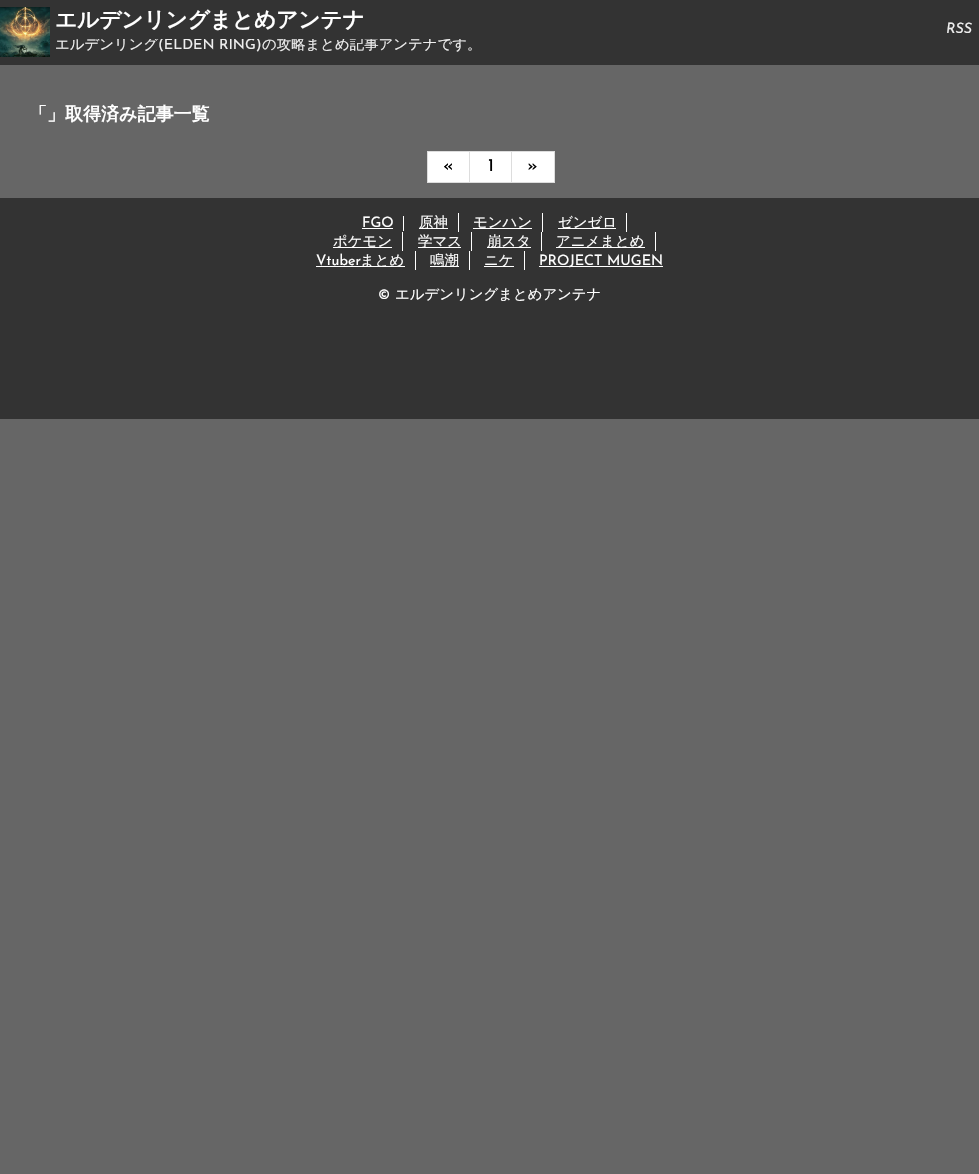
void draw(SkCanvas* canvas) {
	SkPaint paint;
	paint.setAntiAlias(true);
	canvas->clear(0xff666666);
	paint.setColor(0xff333333);
	canvas->drawRect(SkRect::MakeXYWH(0, 0, 979, 65), paint);
	canvas->drawImageRect(SkImages::DeferredFromEncodedData(SkData::MakeFromFileName("img1.png")), SkRect::MakeXYWH(0, 7, 50, 50), SkSamplingOptions());
	SkFont f1(fontMgr->matchFamilyStyle("WenQuanYi Zen Hei", SkFontStyle::Bold()), 21.6);
	f1.setSubpixel(true);
	paint.setColor(0xffffffff);
	canvas->drawString("エルデンリングまとめアンテナ", 55, 27, f1, paint);
	canvas->save();
	canvas->clipRect(SkRect::MakeXYWH(55, 39, 821, 14));
	SkFont f2(fontMgr->matchFamilyStyle("WenQuanYi Zen Hei", SkFontStyle(500, SkFontStyle::kNormal_Width, SkFontStyle::kUpright_Slant)), 14.4);
	f2.setSubpixel(true);
	paint.setColor(0xffeeeeee);
	canvas->drawString("エルデンリング", 55, 49, f2, paint);
	SkFont f3(fontMgr->matchFamilyStyle("Josefin Sans", SkFontStyle::Normal()), 14.4);
	f3.setSubpixel(true);
	canvas->drawString("(ELDEN RING)", 158, 49, f3, paint);
	canvas->drawString("の攻略まとめ記事アンテナです。", 262, 49, f2, paint);
	canvas->restore();
	SkFont f4(fontMgr->matchFamilyStyle("Josefin Sans", SkFontStyle::Italic()), 14.4);
	f4.setSubpixel(true);
	canvas->drawString("RSS", 946, 33, f4, paint);
	SkFont f5(fontMgr->matchFamilyStyle("WenQuanYi Zen Hei", SkFontStyle::Bold()), 18);
	f5.setSubpixel(true);
	paint.setColor(0xffffffff);
	canvas->drawString("「」取得済み記事一覧", 29, 120, f5, paint);
	canvas->drawRect(SkRect::MakeXYWH(428, 152, 41, 30), paint);
	paint.setColor(0xffdddddd);
	canvas->drawRect(SkRect::MakeXYWH(427, 151, 85, 1), paint);
	canvas->drawRect(SkRect::MakeXYWH(427, 182, 85, 1), paint);
	canvas->drawRect(SkRect::MakeXYWH(427, 151, 1, 32), paint);
	SkFont f6(fontMgr->matchFamilyStyle("Josefin Sans", SkFontStyle::Normal()), 18);
	f6.setSubpixel(true);
	paint.setColor(0xff000000);
	canvas->drawString("«", 443, 171, f6, paint);
	paint.setColor(0xffffffff);
	canvas->drawRect(SkRect::MakeXYWH(470, 152, 41, 30), paint);
	paint.setColor(0xffdddddd);
	canvas->drawRect(SkRect::MakeXYWH(469, 151, 1, 32), paint);
	paint.setColor(0xff000000);
	canvas->drawString("1", 488, 171, f6, paint);
	paint.setColor(0xffffffff);
	canvas->drawRect(SkRect::MakeXYWH(511.5, 151.5, 43, 31), paint);
	paint.setStroke(true);
	paint.setStrokeWidth(1);
	paint.setColor(0xffdddddd);
	canvas->drawRect(SkRect::MakeXYWH(511.5, 151.5, 43, 31), paint);
	paint.setStroke(false);
	paint.setColor(0xff000000);
	canvas->drawString("»", 527, 171, f6, paint);
	paint.setColor(0xff333333);
	canvas->drawRect(SkRect::MakeXYWH(0, 198, 979, 221), paint);
	paint.setColor(0xffffffff);
	canvas->drawRect(SkRect::MakeXYWH(403, 216, 1, 15), paint);
	canvas->drawString("FGO", 362, 227, f3, paint);
	canvas->drawRect(SkRect::MakeXYWH(362, 228, 31, 1), paint);
	canvas->drawRect(SkRect::MakeXYWH(458, 213, 1, 19), paint);
	canvas->drawRect(SkRect::MakeXYWH(419, 228, 29, 1), paint);
	canvas->drawString("原神", 419, 227, f2, paint);
	canvas->drawRect(SkRect::MakeXYWH(542, 213, 1, 19), paint);
	canvas->drawString("モンハン", 473, 227, f2, paint);
	canvas->drawRect(SkRect::MakeXYWH(473, 228, 59, 1), paint);
	canvas->drawRect(SkRect::MakeXYWH(626, 213, 1, 19), paint);
	canvas->drawRect(SkRect::MakeXYWH(558, 228, 58, 1), paint);
	canvas->drawString("ゼンゼロ", 558, 227, f2, paint);
	canvas->drawRect(SkRect::MakeXYWH(402, 232, 1, 19), paint);
	canvas->drawRect(SkRect::MakeXYWH(333, 247, 59, 1), paint);
	canvas->drawString("ポケモン", 333, 246, f2, paint);
	canvas->drawRect(SkRect::MakeXYWH(471, 232, 1, 19), paint);
	canvas->drawRect(SkRect::MakeXYWH(418, 247, 43, 1), paint);
	canvas->drawString("学マス", 418, 246, f2, paint);
	canvas->drawRect(SkRect::MakeXYWH(541, 232, 1, 19), paint);
	canvas->drawRect(SkRect::MakeXYWH(487, 247, 44, 1), paint);
	canvas->drawString("崩スタ", 487, 246, f2, paint);
	canvas->drawRect(SkRect::MakeXYWH(655, 232, 1, 19), paint);
	canvas->drawRect(SkRect::MakeXYWH(556, 247, 89, 1), paint);
	canvas->drawString("アニメまとめ", 556, 246, f2, paint);
	canvas->drawRect(SkRect::MakeXYWH(415, 251, 1, 19), paint);
	canvas->drawString("Vtuber", 316, 265, f3, paint);
	canvas->drawRect(SkRect::MakeXYWH(316, 266, 89, 1), paint);
	canvas->drawString("まとめ", 360, 265, f2, paint);
	canvas->drawRect(SkRect::MakeXYWH(469, 251, 1, 19), paint);
	canvas->drawRect(SkRect::MakeXYWH(430, 266, 29, 1), paint);
	canvas->drawString("鳴潮", 430, 265, f2, paint);
	canvas->drawRect(SkRect::MakeXYWH(524, 251, 1, 19), paint);
	canvas->drawRect(SkRect::MakeXYWH(484, 266, 30, 1), paint);
	canvas->drawString("ニケ", 484, 265, f2, paint);
	canvas->drawRect(SkRect::MakeXYWH(539, 266, 124, 1), paint);
	canvas->drawString("PROJECT MUGEN", 539, 265, f3, paint);
	canvas->drawString("©", 378, 299, f3, paint);
	canvas->drawString("エルデンリングまとめアンテナ", 395, 299, f2, paint);
}
